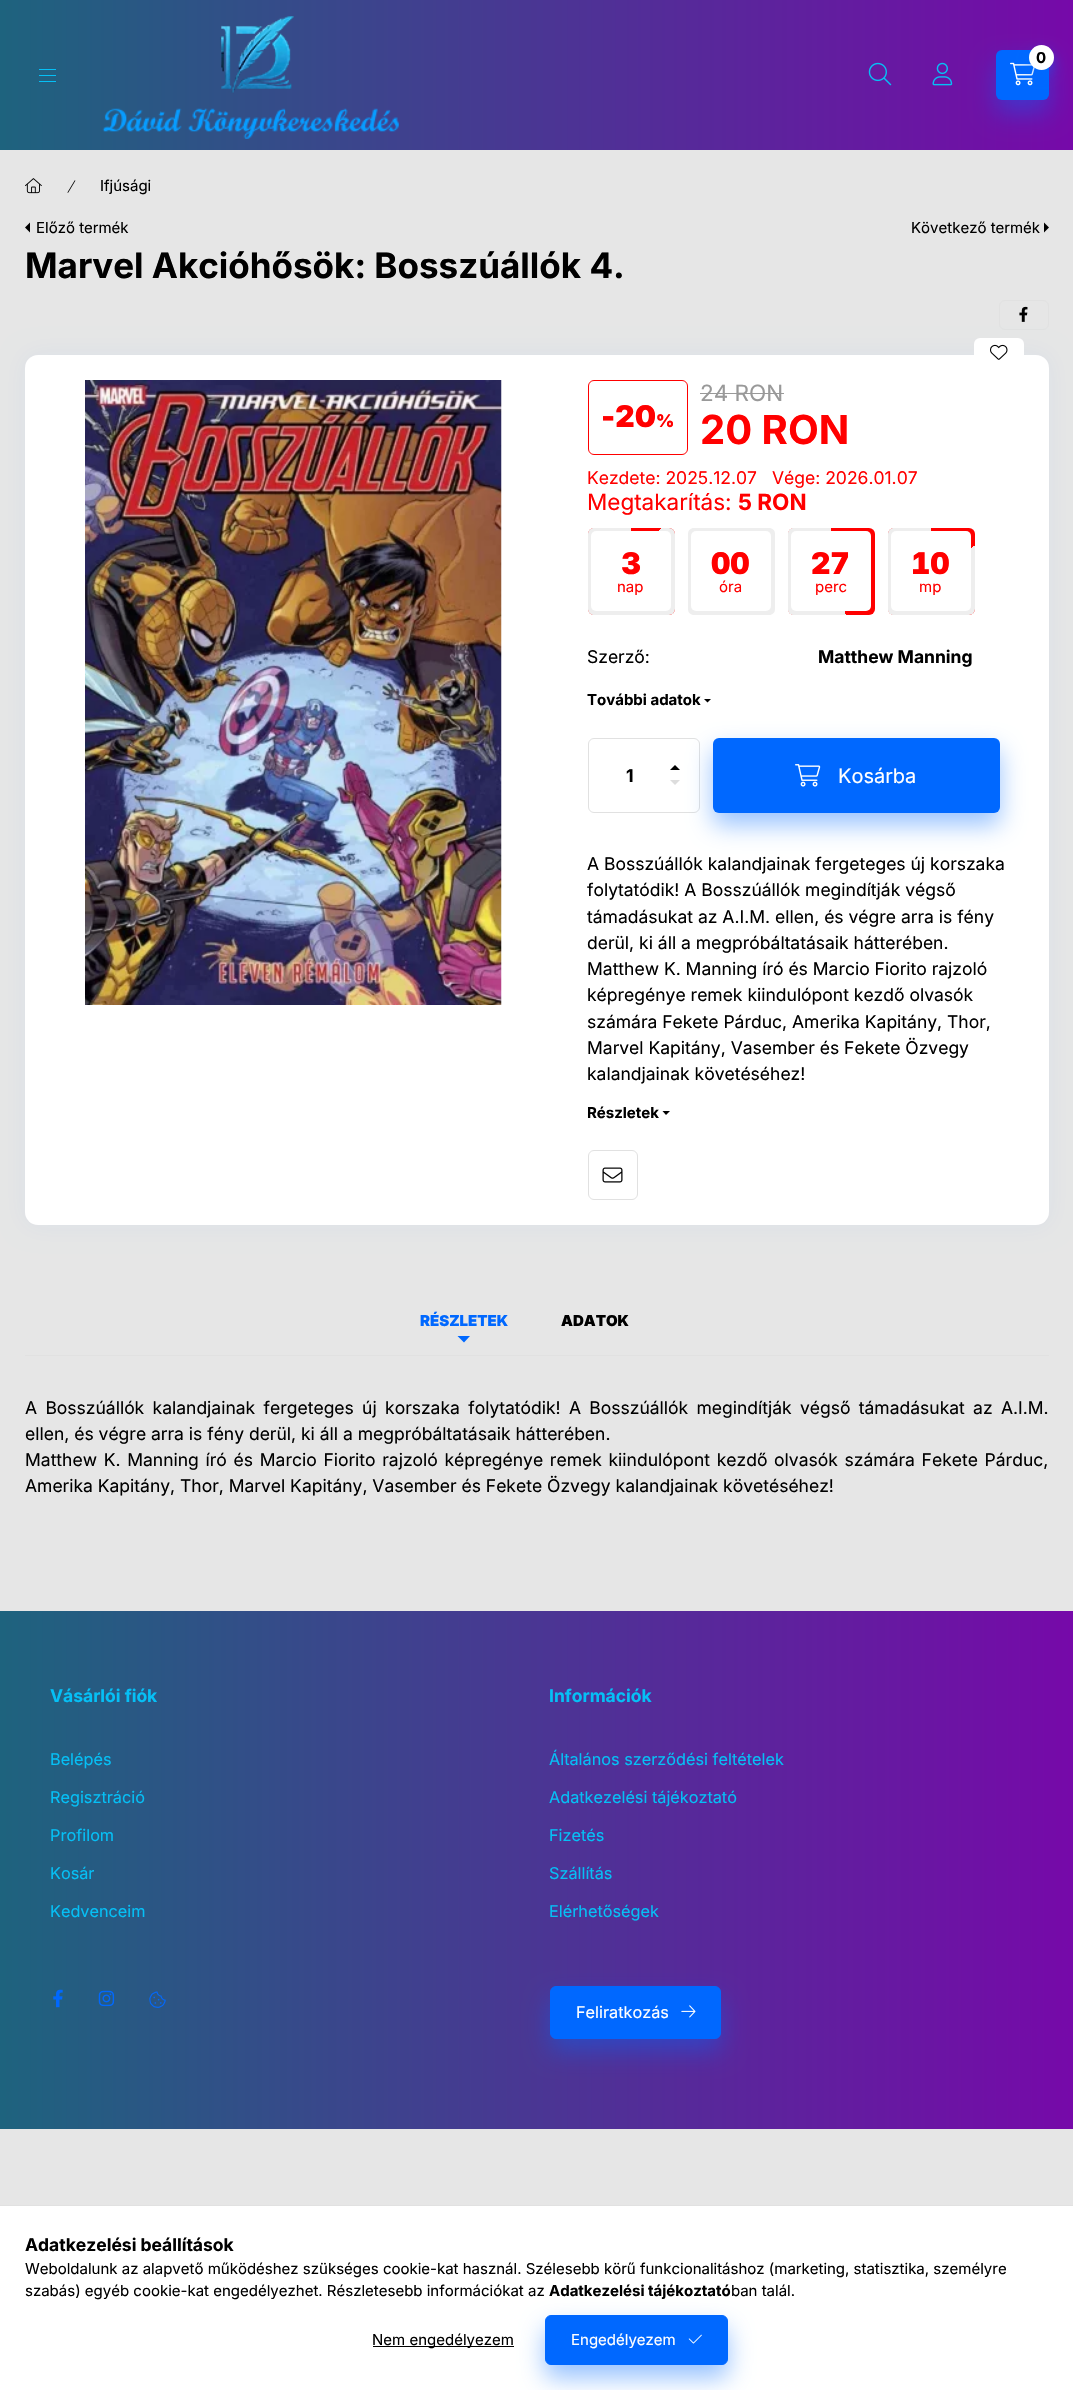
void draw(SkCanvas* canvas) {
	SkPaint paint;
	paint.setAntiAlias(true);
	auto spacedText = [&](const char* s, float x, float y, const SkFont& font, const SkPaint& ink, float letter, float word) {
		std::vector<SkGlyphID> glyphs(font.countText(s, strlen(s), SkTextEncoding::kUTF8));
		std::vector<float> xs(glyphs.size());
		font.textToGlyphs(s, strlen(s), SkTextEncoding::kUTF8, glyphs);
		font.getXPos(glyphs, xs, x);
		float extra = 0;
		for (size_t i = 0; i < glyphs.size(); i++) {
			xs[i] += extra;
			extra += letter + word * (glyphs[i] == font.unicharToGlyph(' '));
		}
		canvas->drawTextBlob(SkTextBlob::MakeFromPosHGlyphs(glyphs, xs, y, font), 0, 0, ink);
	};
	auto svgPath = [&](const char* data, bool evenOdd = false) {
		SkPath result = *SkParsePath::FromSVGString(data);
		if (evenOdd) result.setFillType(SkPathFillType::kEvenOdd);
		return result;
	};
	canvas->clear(0xffe6e6e6);
	{
		const SkColor colors[] = {0xff1e637e, 0xff7609a9};
		const float stops[] = {0, 1};
		const SkPoint ends[] = {{0, 1195}, {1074, 1195}};
		paint.setShader(SkGradientShader::MakeLinear(ends, colors, stops, 2, SkTileMode::kClamp));
		paint.setAlpha(255);
	}
	canvas->drawRect(SkRect::MakeXYWH(0, 0, 1073, 150), paint);
	paint.setShader(nullptr);
	paint.setColor(0xff05c0f6);
	canvas->drawRect(SkRect::MakeXYWH(39, 69, 17, 1), paint);
	canvas->drawRect(SkRect::MakeXYWH(39, 75, 17, 1), paint);
	canvas->drawRect(SkRect::MakeXYWH(39, 81, 17, 1), paint);
	canvas->drawImageRect(SkImages::DeferredFromEncodedData(SkData::MakeFromFileName("img1.png")), SkRect::MakeXYWH(102, 16, 297, 123), SkSamplingOptions());
	paint.setColor(0x660068ff);
	paint.setMaskFilter(SkMaskFilter::MakeBlur(kNormal_SkBlurStyle, 12.5));
	canvas->drawRoundRect(SkRect::MakeXYWH(996, 63, 53, 50), 6, 6, paint);
	paint.setMaskFilter(nullptr);
	paint.setColor(0xff0068ff);
	canvas->drawRoundRect(SkRect::MakeXYWH(996, 50, 53, 50), 6, 6, paint);
	canvas->drawImageRect(SkImages::DeferredFromEncodedData(SkData::MakeFromFileName("img2.png")), SkRect::MakeXYWH(1010, 62, 25, 24), SkSamplingOptions());
	paint.setColor(0x660068ff);
	paint.setMaskFilter(SkMaskFilter::MakeBlur(kNormal_SkBlurStyle, 6));
	canvas->drawRoundRect(SkRect::MakeXYWH(1029, 51, 25, 25), 12.5, 12.5, paint);
	paint.setMaskFilter(nullptr);
	paint.setColor(0xffffffff);
	canvas->drawCircle(1041.5, 57.5, 12.5, paint);
	SkFont f1(fontMgr->matchFamilyStyle("Inter", SkFontStyle::Bold()), 15);
	f1.setSubpixel(true);
	paint.setColor(0xff000000);
	canvas->drawString("0", 1036, 63, f1, paint);
	canvas->drawImageRect(SkImages::DeferredFromEncodedData(SkData::MakeFromFileName("img3.png")), SkRect::MakeXYWH(868, 62, 24, 24), SkSamplingOptions());
	canvas->drawImageRect(SkImages::DeferredFromEncodedData(SkData::MakeFromFileName("img4.png")), SkRect::MakeXYWH(932, 62, 21, 24), SkSamplingOptions());
	canvas->drawImageRect(SkImages::DeferredFromEncodedData(SkData::MakeFromFileName("img5.png")), SkRect::MakeXYWH(25, 178, 17, 16), SkSamplingOptions());
	canvas->drawImageRect(SkImages::DeferredFromEncodedData(SkData::MakeFromFileName("img6.png")), SkRect::MakeXYWH(67, 180, 9, 13), SkSamplingOptions());
	SkFont f2(fontMgr->matchFamilyStyle("Inter", SkFontStyle::Normal()), 15);
	f2.setSubpixel(true);
	canvas->drawString("Ifjúsági", 100, 191, f2, paint);
	canvas->drawPath(svgPath("M30 232.5V222.5L25 227.5Z"), paint);
	canvas->drawString("Előző termék", 36, 233, f2, paint);
	canvas->drawString("Következő termék", 911, 233, f2, paint);
	canvas->drawPath(svgPath("M1044 232.5V222.5L1049 227.5Z"), paint);
	SkFont f3(fontMgr->matchFamilyStyle("Inter", SkFontStyle::Bold()), 35);
	f3.setSubpixel(true);
	canvas->drawString("Marvel Akcióhősök: Bosszúállók 4.", 25, 278, f3, paint);
	paint.setStroke(true);
	paint.setStrokeWidth(1);
	paint.setColor(0xffe1e1e1);
	canvas->drawRoundRect(SkRect::MakeXYWH(999.5, 300.5, 49, 29), 5.5, 5.5, paint);
	canvas->drawImageRect(SkImages::DeferredFromEncodedData(SkData::MakeFromFileName("img7.png")), SkRect::MakeXYWH(1019, 306, 9, 16), SkSamplingOptions());
	paint.setStroke(false);
	paint.setColor(0x0d0068ff);
	paint.setMaskFilter(SkMaskFilter::MakeBlur(kNormal_SkBlurStyle, 12.5));
	canvas->drawRoundRect(SkRect::MakeXYWH(25, 355, 1024, 870), 13, 13, paint);
	paint.setMaskFilter(nullptr);
	paint.setColor(0xffffffff);
	canvas->drawRoundRect(SkRect::MakeXYWH(25, 355, 1024, 870), 13, 13, paint);
	canvas->drawRoundRect(SkRect::MakeXYWH(974, 338, 50, 30), 6, 6, paint);
	canvas->drawImageRect(SkImages::DeferredFromEncodedData(SkData::MakeFromFileName("img8.png")), SkRect::MakeXYWH(990, 344, 18, 16), SkSamplingOptions());
	canvas->drawImageRect(SkImages::DeferredFromEncodedData(SkData::MakeFromFileName("img9.png")), SkRect::MakeXYWH(85, 380, 417, 625), SkSamplingOptions());
	paint.setStroke(true);
	paint.setColor(0xffff0000);
	canvas->drawRoundRect(SkRect::MakeXYWH(588.5, 380.5, 99, 74), 5.5, 5.5, paint);
	SkFont f4(fontMgr->matchFamilyStyle("Inter", SkFontStyle(900, SkFontStyle::kNormal_Width, SkFontStyle::kUpright_Slant)), 30);
	f4.setSubpixel(true);
	paint.setStroke(false);
	canvas->drawString("-20", 601, 427, f4, paint);
	SkFont f5(fontMgr->matchFamilyStyle("Inter", SkFontStyle(900, SkFontStyle::kNormal_Width, SkFontStyle::kUpright_Slant)), 17.5);
	f5.setSubpixel(true);
	canvas->drawString("%", 656, 427, f5, paint);
	SkFont f6(fontMgr->matchFamilyStyle("Inter", SkFontStyle::Normal()), 22.5);
	f6.setSubpixel(true);
	paint.setColor(0xff999999);
	canvas->drawString("24 RON", 700, 401, f6, paint);
	canvas->drawRect(SkRect::MakeXYWH(700, 393, 84, 1), paint);
	SkFont f7(fontMgr->matchFamilyStyle("Inter", SkFontStyle::Bold()), 40);
	f7.setSubpixel(true);
	paint.setColor(0xffff0000);
	canvas->drawString("20 RON", 700, 444, f7, paint);
	SkFont f8(fontMgr->matchFamilyStyle("Inter", SkFontStyle::Normal()), 17.5);
	f8.setSubpixel(true);
	canvas->drawString("Kezdete: 2025.12.07", 587, 484, f8, paint);
	canvas->drawString("Vége: 2026.01.07", 772, 484, f8, paint);
	canvas->drawString("Megtakarítás:", 587, 510, f6, paint);
	SkFont f9(fontMgr->matchFamilyStyle("Inter", SkFontStyle::Bold()), 22.5);
	f9.setSubpixel(true);
	canvas->drawString("5 RON", 738, 510, f9, paint);
	canvas->drawRoundRect(SkRect::MakeXYWH(588, 528, 87, 87), 6, 6, paint);
	paint.setColor(0xffeeeeee);
	canvas->drawPath(svgPath("M594 528H631V615H594C590.5 615 588 612.5 588 609V534C588 530.5 590.5 528 594 528Z"), paint);
	{
		const SkColor colors[] = {0x00eeeeee, 0xffeeeeee};
		const float stops[] = {0.5, 0.5};
		const SkPoint ends[] = {{581, 536}, {681, 606}};
		paint.setShader(SkGradientShader::MakeLinear(ends, colors, stops, 2, SkTileMode::kClamp));
		paint.setAlpha(255);
	}
	canvas->drawRoundRect(SkRect::MakeXYWH(588, 528, 87, 87), 6, 6, paint);
	paint.setShader(nullptr);
	paint.setColor(0xffffffff);
	canvas->drawRoundRect(SkRect::MakeXYWH(591, 531, 80, 80), 5, 5, paint);
	paint.setColor(0xffff0000);
	canvas->drawString("3", 621, 574, f4, paint);
	canvas->drawString("nap", 617, 592, f2, paint);
	paint.setColor(0xffeeeeee);
	canvas->drawPath(svgPath("M694 528H731V615H694C690.5 615 688 612.5 688 609V534C688 530.5 690.5 528 694 528Z"), paint);
	canvas->drawPath(svgPath("M731 528H769C772.5 528 775 530.5 775 534V609C775 612.5 772.5 615 769 615H731Z"), paint);
	paint.setColor(0xffffffff);
	canvas->drawRoundRect(SkRect::MakeXYWH(691, 531, 80, 80), 5, 5, paint);
	SkFont f10(fontMgr->matchFamilyStyle("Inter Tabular", SkFontStyle(900, SkFontStyle::kNormal_Width, SkFontStyle::kUpright_Slant)), 30);
	f10.setSubpixel(true);
	paint.setColor(0xffff0000);
	canvas->drawString("00", 711, 574, f10, paint);
	canvas->drawString("óra", 719, 592, f2, paint);
	canvas->drawRoundRect(SkRect::MakeXYWH(788, 528, 87, 87), 6, 6, paint);
	paint.setColor(0xffeeeeee);
	canvas->drawPath(svgPath("M794 528H831V615H794C790.5 615 788 612.5 788 609V534C788 530.5 790.5 528 794 528Z"), paint);
	{
		const SkColor colors[] = {0x00eeeeee, 0xffeeeeee};
		const float stops[] = {0.5, 0.5};
		const SkPoint ends[] = {{884, 554}, {779, 588}};
		paint.setShader(SkGradientShader::MakeLinear(ends, colors, stops, 2, SkTileMode::kClamp));
		paint.setAlpha(255);
	}
	canvas->drawRoundRect(SkRect::MakeXYWH(788, 528, 87, 87), 6, 6, paint);
	paint.setShader(nullptr);
	paint.setColor(0xffffffff);
	canvas->drawRoundRect(SkRect::MakeXYWH(791, 531, 80, 80), 5, 5, paint);
	paint.setColor(0xffff0000);
	canvas->drawString("27", 811, 574, f10, paint);
	canvas->drawString("perc", 815, 592, f2, paint);
	canvas->drawRoundRect(SkRect::MakeXYWH(888, 528, 87, 87), 6, 6, paint);
	paint.setColor(0xffeeeeee);
	canvas->drawPath(svgPath("M894 528H931V615H894C890.5 615 888 612.5 888 609V534C888 530.5 890.5 528 894 528Z"), paint);
	{
		const SkColor colors[] = {0x00eeeeee, 0xffeeeeee};
		const float stops[] = {0.5, 0.5};
		const SkPoint ends[] = {{901, 519}, {961, 623}};
		paint.setShader(SkGradientShader::MakeLinear(ends, colors, stops, 2, SkTileMode::kClamp));
		paint.setAlpha(255);
	}
	canvas->drawRoundRect(SkRect::MakeXYWH(888, 528, 87, 87), 6, 6, paint);
	paint.setShader(nullptr);
	paint.setColor(0xffffffff);
	canvas->drawRoundRect(SkRect::MakeXYWH(891, 531, 80, 80), 5, 5, paint);
	paint.setColor(0xffff0000);
	canvas->drawString("10", 911, 574, f10, paint);
	canvas->drawString("mp", 919, 592, f2, paint);
	paint.setColor(0xff000000);
	canvas->drawString("Szerző:", 587, 663, f8, paint);
	SkFont f11(fontMgr->matchFamilyStyle("Inter", SkFontStyle::Bold()), 17.5);
	f11.setSubpixel(true);
	canvas->drawString("Matthew Manning", 818, 663, f11, paint);
	canvas->drawString("További adatok", 587, 705, f1, paint);
	canvas->drawPath(svgPath("M704 699H711L707.5 702.5Z"), paint);
	paint.setStroke(true);
	paint.setColor(0xffe1e1e1);
	canvas->drawRoundRect(SkRect::MakeXYWH(588.5, 738.5, 111, 74), 5.5, 5.5, paint);
	paint.setStroke(false);
	paint.setColor(0xff000000);
	canvas->drawString("1", 626, 782, f11, paint);
	canvas->drawPath(svgPath("M680 770H670L675 765Z"), paint);
	paint.setColor(0xffdddddd);
	canvas->drawPath(svgPath("M670 780H680L675 785Z"), paint);
	paint.setColor(0x660068ff);
	paint.setMaskFilter(SkMaskFilter::MakeBlur(kNormal_SkBlurStyle, 12.5));
	canvas->drawRoundRect(SkRect::MakeXYWH(713, 750, 287, 75), 6, 6, paint);
	paint.setMaskFilter(nullptr);
	paint.setColor(0xff0068ff);
	canvas->drawRoundRect(SkRect::MakeXYWH(713, 738, 287, 75), 6, 6, paint);
	canvas->drawImageRect(SkImages::DeferredFromEncodedData(SkData::MakeFromFileName("img10.png")), SkRect::MakeXYWH(795, 764, 26, 23), SkSamplingOptions());
	SkFont f12(fontMgr->matchFamilyStyle("Inter", SkFontStyle::Normal()), 20);
	f12.setSubpixel(true);
	paint.setColor(0xffffffff);
	canvas->drawString("Kosárba", 838, 783, f12, paint);
	paint.setColor(0xff000000);
	canvas->drawString("A Bosszúállók kalandjainak fergeteges új korszaka", 587, 870, f8, paint);
	canvas->drawString("folytatódik! A Bosszúállók megindítják végső", 587, 896, f8, paint);
	canvas->drawString("támadásukat az A.I.M. ellen, és végre arra is fény", 587, 923, f8, paint);
	canvas->drawString("derül, ki áll a megpróbáltatásaik hátterében.", 587, 949, f8, paint);
	canvas->drawString("Matthew K. Manning író és Marcio Fiorito rajzoló", 587, 975, f8, paint);
	canvas->drawString("képregénye remek kiindulópont kezdő olvasók", 587, 1001, f8, paint);
	canvas->drawString("számára Fekete Párduc, Amerika Kapitány, Thor,", 587, 1028, f8, paint);
	canvas->drawString("Marvel Kapitány, Vasember és Fekete Özvegy", 587, 1054, f8, paint);
	canvas->drawString("kalandjainak követéséhez!", 587, 1080, f8, paint);
	canvas->drawString("Részletek", 587, 1118, f1, paint);
	canvas->drawPath(svgPath("M662.5 1111H670L666 1115Z"), paint);
	paint.setStroke(true);
	paint.setColor(0xffe1e1e1);
	canvas->drawRoundRect(SkRect::MakeXYWH(588.5, 1150.5, 49, 49), 5.5, 5.5, paint);
	canvas->drawImageRect(SkImages::DeferredFromEncodedData(SkData::MakeFromFileName("img11.png")), SkRect::MakeXYWH(602, 1167, 21, 16), SkSamplingOptions());
	paint.setStroke(false);
	canvas->drawRect(SkRect::MakeXYWH(25, 1355, 1024, 1), paint);
	SkFont f13(fontMgr->matchFamilyStyle("Inter", SkFontStyle(900, SkFontStyle::kNormal_Width, SkFontStyle::kUpright_Slant)), 15);
	f13.setSubpixel(true);
	paint.setColor(0xff0068ff);
	canvas->drawString("RÉSZLETEK", 420, 1326, f13, paint);
	canvas->drawPath(svgPath("M457.5 1336H470L464 1342.5Z"), paint);
	paint.setColor(0xff000000);
	canvas->drawString("ADATOK", 561, 1326, f13, paint);
	spacedText("A Bosszúállók kalandjainak fergeteges új korszaka folytatódik! A Bosszúállók megindítják végső támadásukat az A.I.M.", 25, 1414, f8, paint, 0, 3.4);
	canvas->drawString("ellen, és végre arra is fény derül, ki áll a megpróbáltatásaik hátterében.", 25, 1440, f8, paint);
	spacedText("Matthew K. Manning író és Marcio Fiorito rajzoló képregénye remek kiindulópont kezdő olvasók számára Fekete Párduc,", 25, 1466, f8, paint, 0, 1.8);
	canvas->drawString("Amerika Kapitány, Thor, Marvel Kapitány, Vasember és Fekete Özvegy kalandjainak követéséhez!", 25, 1492, f8, paint);
	{
		const SkColor colors[] = {0xff1e637e, 0xff7609a9};
		const float stops[] = {0, 1};
		const SkPoint ends[] = {{0, 1195}, {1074, 1195}};
		paint.setShader(SkGradientShader::MakeLinear(ends, colors, stops, 2, SkTileMode::kClamp));
		paint.setAlpha(255);
	}
	canvas->drawRect(SkRect::MakeXYWH(0, 1611, 1073, 518), paint);
	paint.setShader(nullptr);
	paint.setColor(0xff05c0f6);
	canvas->drawString("Vásárlói fiók", 50, 1702, f11, paint);
	SkFont f14(fontMgr->matchFamilyStyle("Inter", SkFontStyle::Normal()), 16.25);
	f14.setSubpixel(true);
	canvas->drawString("Belépés", 50, 1765, f14, paint);
	canvas->drawString("Regisztráció", 50, 1803, f14, paint);
	canvas->drawString("Profilom", 50, 1841, f14, paint);
	canvas->drawString("Kosár", 50, 1879, f14, paint);
	canvas->drawString("Kedvenceim", 50, 1917, f14, paint);
	canvas->drawString("Információk", 549, 1702, f11, paint);
	canvas->drawString("Általános szerződési feltételek", 549, 1765, f14, paint);
	canvas->drawString("Adatkezelési tájékoztató", 549, 1803, f14, paint);
	canvas->drawString("Fizetés", 549, 1841, f14, paint);
	canvas->drawString("Szállítás", 549, 1879, f14, paint);
	canvas->drawString("Elérhetőségek", 549, 1917, f14, paint);
	canvas->drawImageRect(SkImages::DeferredFromEncodedData(SkData::MakeFromFileName("img12.png")), SkRect::MakeXYWH(53, 1989, 10, 19), SkSamplingOptions());
	canvas->drawImageRect(SkImages::DeferredFromEncodedData(SkData::MakeFromFileName("img13.png")), SkRect::MakeXYWH(98, 1990, 17, 17), SkSamplingOptions());
	canvas->drawImageRect(SkImages::DeferredFromEncodedData(SkData::MakeFromFileName("img14.png")), SkRect::MakeXYWH(149, 1991, 17, 17), SkSamplingOptions());
	paint.setColor(0x660068ff);
	paint.setMaskFilter(SkMaskFilter::MakeBlur(kNormal_SkBlurStyle, 12.5));
	canvas->drawRoundRect(SkRect::MakeXYWH(550, 1999, 171, 52), 6, 6, paint);
	paint.setMaskFilter(nullptr);
	paint.setColor(0xff0068ff);
	canvas->drawRoundRect(SkRect::MakeXYWH(550.5, 1986.5, 170, 52), 5.5, 5.5, paint);
	paint.setStroke(true);
	canvas->drawRoundRect(SkRect::MakeXYWH(550.5, 1986.5, 170, 52), 5.5, 5.5, paint);
	paint.setStroke(false);
	paint.setColor(0xffffffff);
	canvas->drawString("Feliratkozás", 576, 2018, f14, paint);
	canvas->drawImageRect(SkImages::DeferredFromEncodedData(SkData::MakeFromFileName("img15.png")), SkRect::MakeXYWH(681, 2005, 15, 13), SkSamplingOptions());
	canvas->drawRect(SkRect::MakeXYWH(0, 2206, 1073, 184), paint);
	paint.setColor(0xffe1e1e1);
	canvas->drawRect(SkRect::MakeXYWH(0, 2205, 1073, 1), paint);
	paint.setColor(0xff000000);
	canvas->drawString("Adatkezelési beállítások", 25, 2251, f11, paint);
	canvas->drawString("Weboldalunk az alapvető működéshez szükséges cookie-kat használ. Szélesebb körű funkcionalitáshoz (marketing, statisztika, személyre", 25, 2274, f2, paint);
	canvas->drawString("szabás) egyéb cookie-kat engedélyezhet. Részletesebb információkat az", 25, 2296, f2, paint);
	canvas->drawString("Adatkezelési tájékoztató", 549, 2296, f1, paint);
	canvas->drawString("ban talál.", 731, 2296, f2, paint);
	canvas->drawRect(SkRect::MakeXYWH(373, 2346, 141, 1), paint);
	canvas->drawString("Nem engedélyezem", 372, 2345, f2, paint);
	paint.setColor(0x660068ff);
	paint.setMaskFilter(SkMaskFilter::MakeBlur(kNormal_SkBlurStyle, 12.5));
	canvas->drawRoundRect(SkRect::MakeXYWH(545, 2328, 183, 50), 6, 6, paint);
	paint.setMaskFilter(nullptr);
	paint.setColor(0xff0068ff);
	canvas->drawRoundRect(SkRect::MakeXYWH(545.5, 2315.5, 182, 49), 5.5, 5.5, paint);
	paint.setStroke(true);
	canvas->drawRoundRect(SkRect::MakeXYWH(545.5, 2315.5, 182, 49), 5.5, 5.5, paint);
	paint.setStroke(false);
	paint.setColor(0xffffffff);
	canvas->drawString("Engedélyezem", 571, 2345, f2, paint);
	canvas->drawImageRect(SkImages::DeferredFromEncodedData(SkData::MakeFromFileName("img16.png")), SkRect::MakeXYWH(688, 2334, 14, 10), SkSamplingOptions());
}
